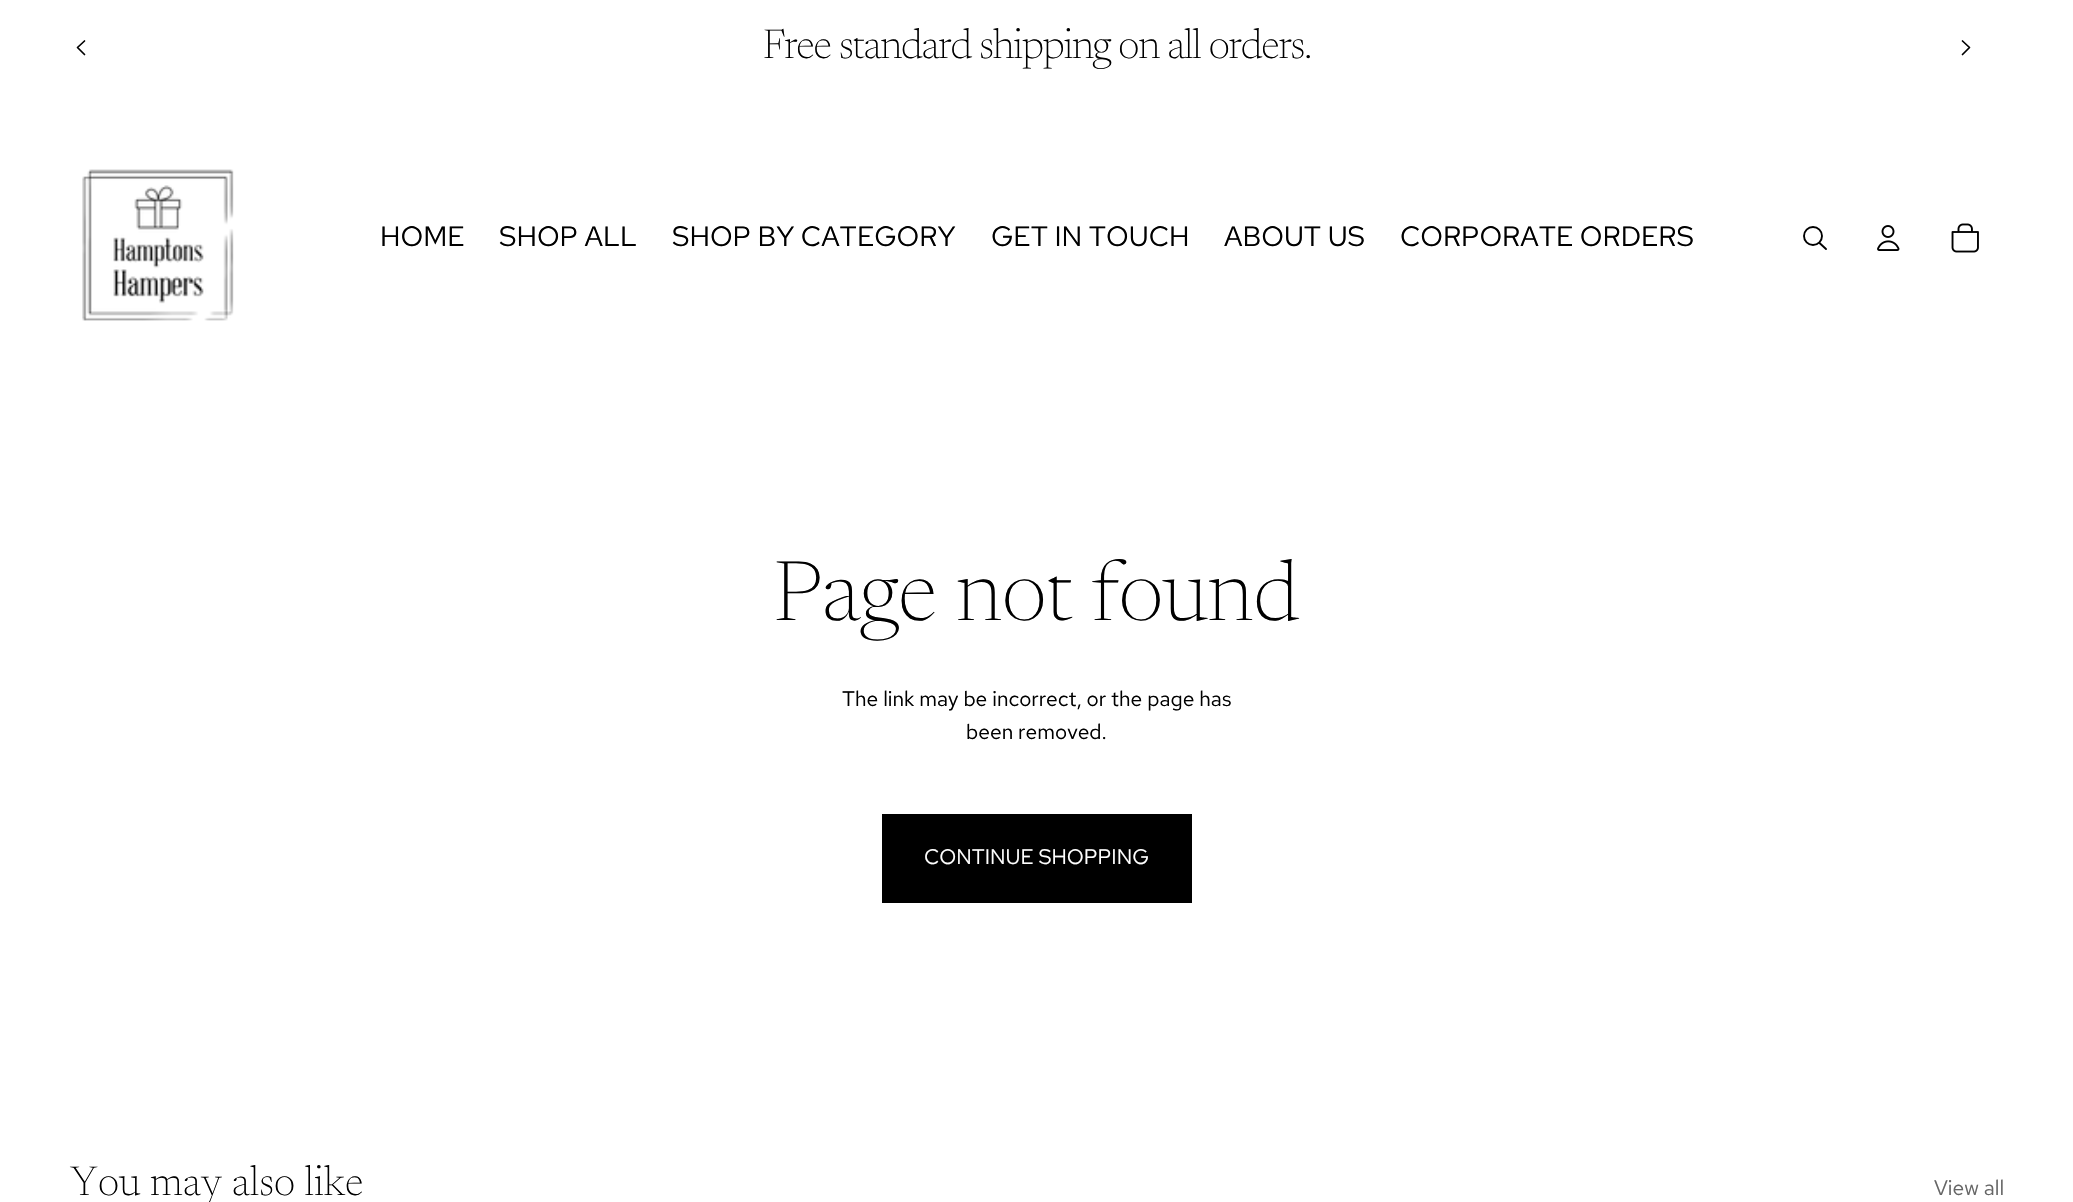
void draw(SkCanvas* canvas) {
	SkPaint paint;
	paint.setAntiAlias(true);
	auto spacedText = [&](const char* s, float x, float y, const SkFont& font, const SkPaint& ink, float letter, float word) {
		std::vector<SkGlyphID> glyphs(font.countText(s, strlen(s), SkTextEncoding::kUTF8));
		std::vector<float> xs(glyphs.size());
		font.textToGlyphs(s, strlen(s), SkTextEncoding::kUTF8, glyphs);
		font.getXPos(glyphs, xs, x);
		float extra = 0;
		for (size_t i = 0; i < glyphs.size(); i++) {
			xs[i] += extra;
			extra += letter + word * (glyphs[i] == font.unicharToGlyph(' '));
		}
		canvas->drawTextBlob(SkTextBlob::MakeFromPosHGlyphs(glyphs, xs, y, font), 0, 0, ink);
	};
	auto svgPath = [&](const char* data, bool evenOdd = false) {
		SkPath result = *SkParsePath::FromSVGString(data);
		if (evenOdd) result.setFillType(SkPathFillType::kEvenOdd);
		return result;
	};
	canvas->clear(0xffffffff);
	SkFont f1(fontMgr->matchFamilyStyle("Newsreader", SkFontStyle(200, SkFontStyle::kNormal_Width, SkFontStyle::kUpright_Slant)), 42);
	f1.setSubpixel(true);
	paint.setColor(0xff000000);
	spacedText("Free standard shipping on all orders.", 763, 58, f1, paint, -1.25, 0);
	paint.setStroke(true);
	paint.setStrokeWidth(1.7);
	paint.setStrokeCap(SkPaint::kRound_Cap);
	paint.setStrokeJoin(SkPaint::kRound_Join);
	canvas->drawPath(svgPath("M84.5 41L77.5 47.5L84.5 54.5"), paint);
	canvas->drawPath(svgPath("M1962.5 41L1969.5 47.5L1962.5 54.5"), paint);
	canvas->drawImageRect(SkImages::DeferredFromEncodedData(SkData::MakeFromFileName("img1.png")), SkRect::MakeXYWH(82, 169, 152, 152), SkSamplingOptions());
	SkFont f2(fontMgr->matchFamilyStyle("Red Hat Text", SkFontStyle::Normal()), 28);
	f2.setSubpixel(true);
	paint.setStroke(false);
	canvas->drawString("HOME", 380, 246, f2, paint);
	canvas->drawString("SHOP ALL", 499, 246, f2, paint);
	canvas->drawString("SHOP BY CATEGORY", 672, 246, f2, paint);
	canvas->drawString("GET IN TOUCH", 991, 246, f2, paint);
	canvas->drawString("ABOUT US", 1224, 246, f2, paint);
	canvas->drawString("CORPORATE ORDERS", 1400, 246, f2, paint);
	paint.setStroke(true);
	paint.setStrokeWidth(1.9);
	paint.setStrokeCap(SkPaint::kButt_Cap);
	paint.setStrokeJoin(SkPaint::kMiter_Join);
	canvas->drawCircle(1813, 236, 9, paint);
	paint.setStrokeCap(SkPaint::kRound_Cap);
	paint.setStrokeJoin(SkPaint::kRound_Join);
	canvas->drawPath(svgPath("M1819.5 243L1826 249"), paint);
	canvas->drawImageRect(SkImages::DeferredFromEncodedData(SkData::MakeFromFileName("img2.png")), SkRect::MakeXYWH(1877, 225, 23, 26), SkSamplingOptions());
	canvas->drawImageRect(SkImages::DeferredFromEncodedData(SkData::MakeFromFileName("img3.png")), SkRect::MakeXYWH(1951, 223, 28, 30), SkSamplingOptions());
	SkFont f3(fontMgr->matchFamilyStyle("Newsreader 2", SkFontStyle(200, SkFontStyle::kNormal_Width, SkFontStyle::kUpright_Slant)), 84);
	f3.setSubpixel(true);
	paint.setStroke(false);
	canvas->drawString("Page not found", 774, 620, f3, paint);
	SkFont f4(fontMgr->matchFamilyStyle("Red Hat Text", SkFontStyle::Normal()), 21);
	f4.setSubpixel(true);
	canvas->drawString("The link may be incorrect, or the page has", 842, 706, f4, paint);
	canvas->drawString("been removed.", 966, 739, f4, paint);
	canvas->drawRect(SkRect::MakeXYWH(882, 814, 310, 89), paint);
	paint.setColor(0xffffffff);
	canvas->drawString("CONTINUE SHOPPING", 924, 864, f4, paint);
	paint.setColor(0xff000000);
	canvas->drawString("You may also like", 70, 1195, f1, paint);
	paint.setColor(0xff666666);
	canvas->drawString("View all", 1934, 1195, f4, paint);
}
